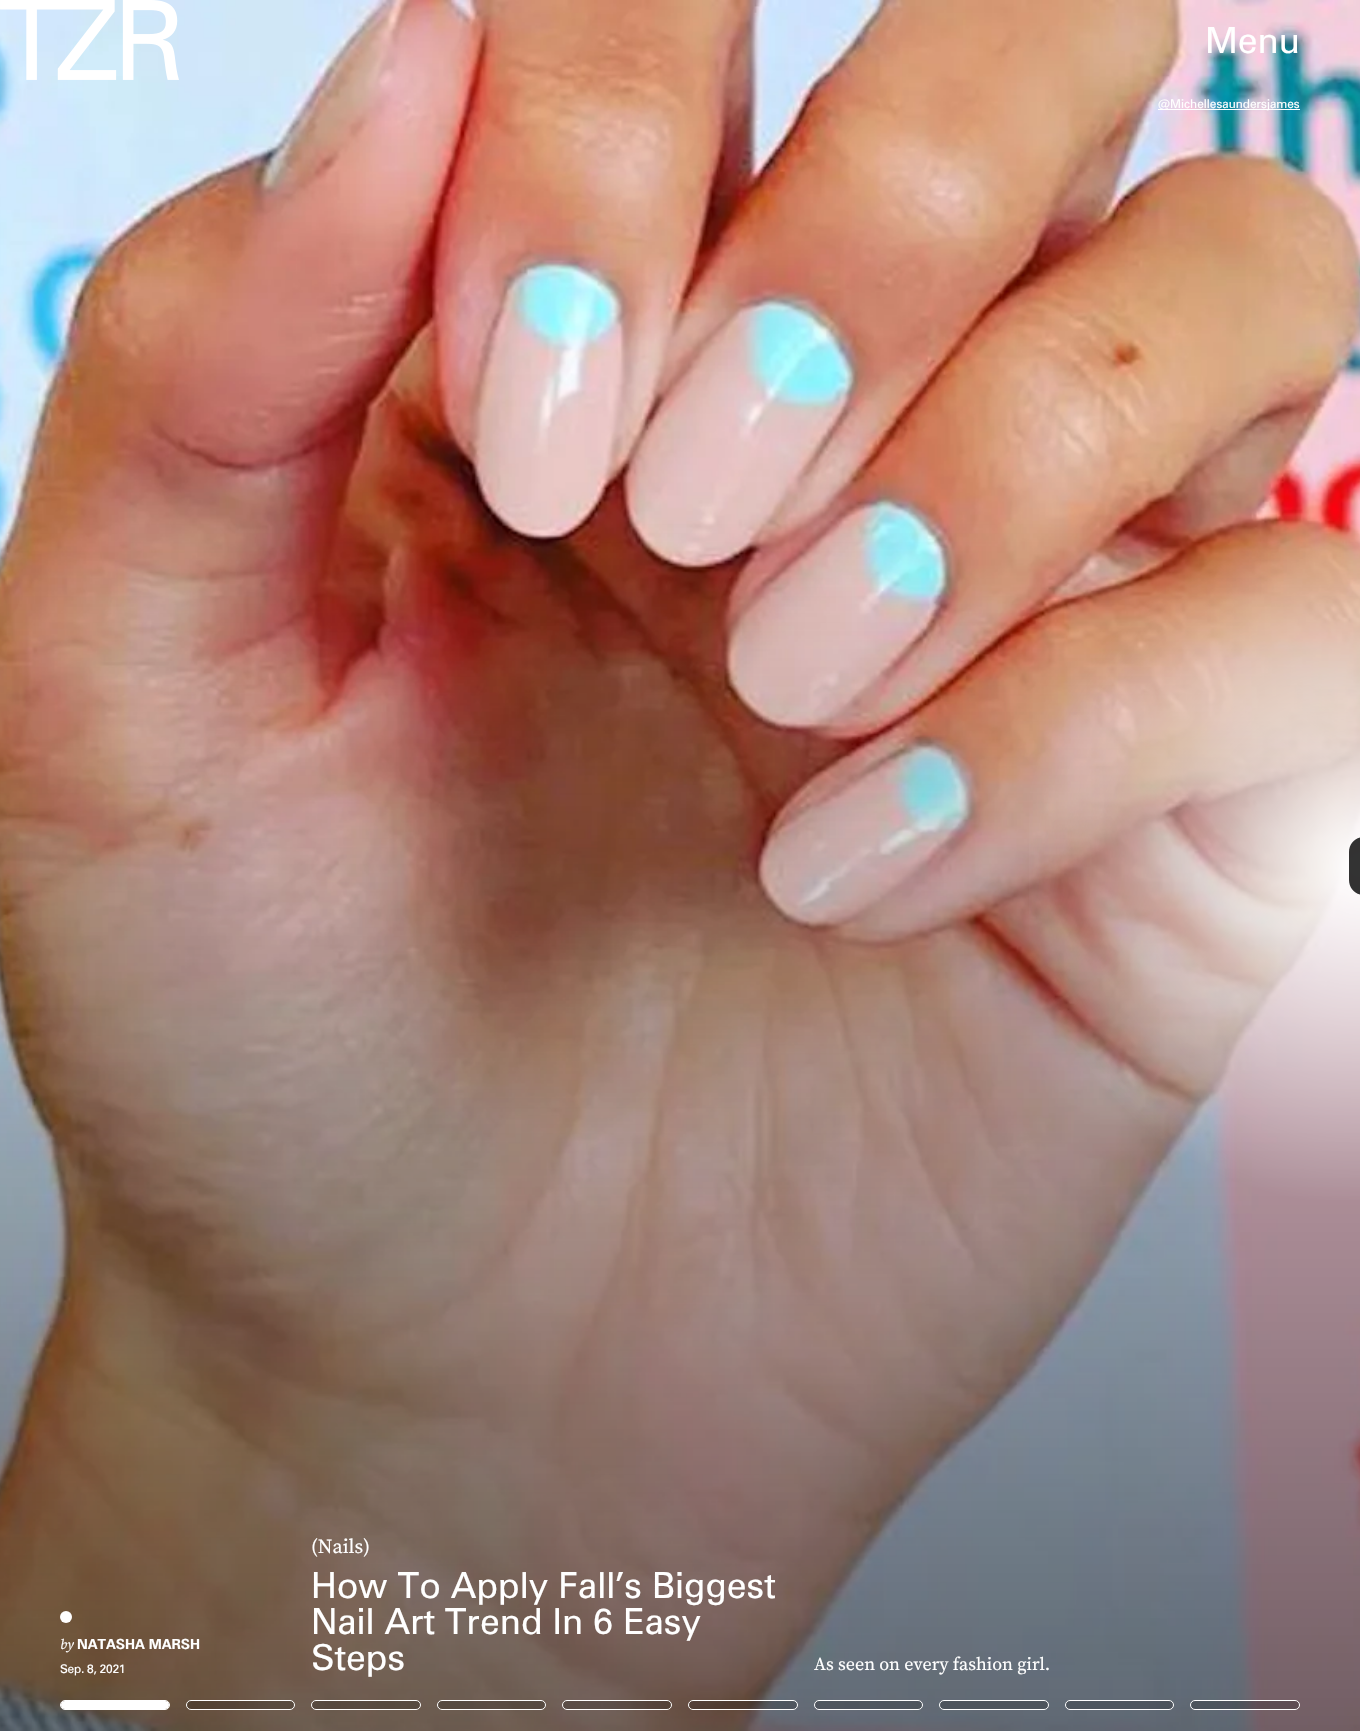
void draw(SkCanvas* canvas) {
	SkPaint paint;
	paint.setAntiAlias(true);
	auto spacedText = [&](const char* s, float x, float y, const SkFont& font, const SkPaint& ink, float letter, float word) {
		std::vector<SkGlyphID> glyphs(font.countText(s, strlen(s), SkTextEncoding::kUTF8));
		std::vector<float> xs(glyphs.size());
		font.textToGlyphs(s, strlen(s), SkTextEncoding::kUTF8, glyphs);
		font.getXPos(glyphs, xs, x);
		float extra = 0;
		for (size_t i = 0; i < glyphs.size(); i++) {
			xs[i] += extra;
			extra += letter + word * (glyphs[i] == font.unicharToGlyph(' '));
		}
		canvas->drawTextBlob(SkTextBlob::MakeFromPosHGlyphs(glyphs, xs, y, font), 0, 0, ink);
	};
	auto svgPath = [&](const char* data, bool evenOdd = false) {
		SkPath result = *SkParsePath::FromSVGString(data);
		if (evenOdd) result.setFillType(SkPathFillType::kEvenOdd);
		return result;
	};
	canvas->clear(0xffffffff);
	canvas->drawImageRect(SkImages::DeferredFromEncodedData(SkData::MakeFromFileName("img2.png")), SkRect::MakeXYWH(0, 0, 1360, 1731), SkSamplingOptions());
	canvas->drawImageRect(SkImages::DeferredFromEncodedData(SkData::MakeFromFileName("img1.png")), SkRect::MakeXYWH(0, 0, 179, 80), SkSamplingOptions());
	SkFont f1(fontMgr->matchFamilyStyle("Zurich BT", SkFontStyle::Normal()), 36);
	f1.setSubpixel(true);
	paint.setColor(0xffffffff);
	canvas->drawString("Menu", 1205, 53, f1, paint);
	canvas->drawRect(SkRect::MakeXYWH(1158, 109, 142, 1), paint);
	SkFont f2(fontMgr->matchFamilyStyle("Zurich BT", SkFontStyle::Normal()), 12);
	f2.setSubpixel(true);
	canvas->drawString("@Michellesaundersjames", 1158, 108, f2, paint);
	canvas->drawCircle(66, 1617, 6, paint);
	SkFont f3(fontMgr->matchFamilyStyle("Source Serif Pro", SkFontStyle::Italic()), 14);
	f3.setSubpixel(true);
	canvas->drawString("by", 60, 1649, f3, paint);
	SkFont f4(fontMgr->matchFamilyStyle("Zurich BT", SkFontStyle::Bold()), 14);
	f4.setSubpixel(true);
	canvas->drawString("NATASHA MARSH", 77, 1649, f4, paint);
	spacedText("Sep. 8, 2021", 60, 1673, f2, paint, -0.25, 0);
	SkFont f5(fontMgr->matchFamilyStyle("Source Serif Pro", SkFontStyle::Normal()), 20);
	f5.setSubpixel(true);
	canvas->drawString("(Nails)", 311, 1553, f5, paint);
	canvas->drawString("How To Apply Fall’s Biggest", 311, 1598, f1, paint);
	canvas->drawString("Nail Art Trend In 6 Easy", 311, 1634, f1, paint);
	canvas->drawString("Steps", 311, 1670, f1, paint);
	SkFont f6(fontMgr->matchFamilyStyle("Source Serif Pro", SkFontStyle::Normal()), 18);
	f6.setSubpixel(true);
	canvas->drawString("As seen on every fashion girl.", 814, 1670, f6, paint);
	{
		const SkColor colors[] = {0xffffffff, 0x00ffffff};
		const float stops[] = {0, 0.25};
		paint.setShader(SkGradientShader::MakeRadial({1360, 866}, 1360, colors, stops, 2, SkTileMode::kClamp));
		paint.setAlpha(255);
	}
	canvas->drawRect(SkRect::MakeXYWH(1029, 532, 331, 668), paint);
	paint.setShader(nullptr);
	paint.setColor(0xcc000000);
	canvas->drawPath(svgPath("M1364 837H1360V895H1364C1355.5 895 1349 888.5 1349 880V852C1349 843.5 1355.5 837 1364 837Z"), paint);
	paint.setStroke(true);
	paint.setStrokeWidth(1);
	paint.setColor(0xffffffff);
	canvas->drawRoundRect(SkRect::MakeXYWH(60.5, 1700.5, 109, 9), 4.5, 4.5, paint);
	paint.setStroke(false);
	canvas->drawRoundRect(SkRect::MakeXYWH(61, 1701, 108, 8), 4, 4, paint);
	paint.setColor(0x33000000);
	canvas->drawRoundRect(SkRect::MakeXYWH(186.5, 1700.5, 108, 9), 4.5, 4.5, paint);
	paint.setStroke(true);
	paint.setColor(0xffffffff);
	canvas->drawRoundRect(SkRect::MakeXYWH(186.5, 1700.5, 108, 9), 4.5, 4.5, paint);
	paint.setStroke(false);
	paint.setColor(0x33000000);
	canvas->drawRoundRect(SkRect::MakeXYWH(311.5, 1700.5, 109, 9), 4.5, 4.5, paint);
	paint.setStroke(true);
	paint.setColor(0xffffffff);
	canvas->drawRoundRect(SkRect::MakeXYWH(311.5, 1700.5, 109, 9), 4.5, 4.5, paint);
	paint.setStroke(false);
	paint.setColor(0x33000000);
	canvas->drawRoundRect(SkRect::MakeXYWH(437.5, 1700.5, 108, 9), 4.5, 4.5, paint);
	paint.setStroke(true);
	paint.setColor(0xffffffff);
	canvas->drawRoundRect(SkRect::MakeXYWH(437.5, 1700.5, 108, 9), 4.5, 4.5, paint);
	paint.setStroke(false);
	paint.setColor(0x33000000);
	canvas->drawRoundRect(SkRect::MakeXYWH(562.5, 1700.5, 109, 9), 4.5, 4.5, paint);
	paint.setStroke(true);
	paint.setColor(0xffffffff);
	canvas->drawRoundRect(SkRect::MakeXYWH(562.5, 1700.5, 109, 9), 4.5, 4.5, paint);
	paint.setStroke(false);
	paint.setColor(0x33000000);
	canvas->drawRoundRect(SkRect::MakeXYWH(688.5, 1700.5, 109, 9), 4.5, 4.5, paint);
	paint.setStroke(true);
	paint.setColor(0xffffffff);
	canvas->drawRoundRect(SkRect::MakeXYWH(688.5, 1700.5, 109, 9), 4.5, 4.5, paint);
	paint.setStroke(false);
	paint.setColor(0x33000000);
	canvas->drawRoundRect(SkRect::MakeXYWH(814.5, 1700.5, 108, 9), 4.5, 4.5, paint);
	paint.setStroke(true);
	paint.setColor(0xffffffff);
	canvas->drawRoundRect(SkRect::MakeXYWH(814.5, 1700.5, 108, 9), 4.5, 4.5, paint);
	paint.setStroke(false);
	paint.setColor(0xff4e555d);
	canvas->drawRoundRect(SkRect::MakeXYWH(939.5, 1700.5, 109, 9), 4.5, 4.5, paint);
	paint.setStroke(true);
	paint.setColor(0xffffffff);
	canvas->drawRoundRect(SkRect::MakeXYWH(939.5, 1700.5, 109, 9), 4.5, 4.5, paint);
	paint.setStroke(false);
	paint.setColor(0x33000000);
	canvas->drawRoundRect(SkRect::MakeXYWH(1065.5, 1700.5, 108, 9), 4.5, 4.5, paint);
	paint.setStroke(true);
	paint.setColor(0xffffffff);
	canvas->drawRoundRect(SkRect::MakeXYWH(1065.5, 1700.5, 108, 9), 4.5, 4.5, paint);
	paint.setStroke(false);
	paint.setColor(0x33000000);
	canvas->drawRoundRect(SkRect::MakeXYWH(1190.5, 1700.5, 109, 9), 4.5, 4.5, paint);
	paint.setStroke(true);
	paint.setColor(0xffffffff);
	canvas->drawRoundRect(SkRect::MakeXYWH(1190.5, 1700.5, 109, 9), 4.5, 4.5, paint);
}
